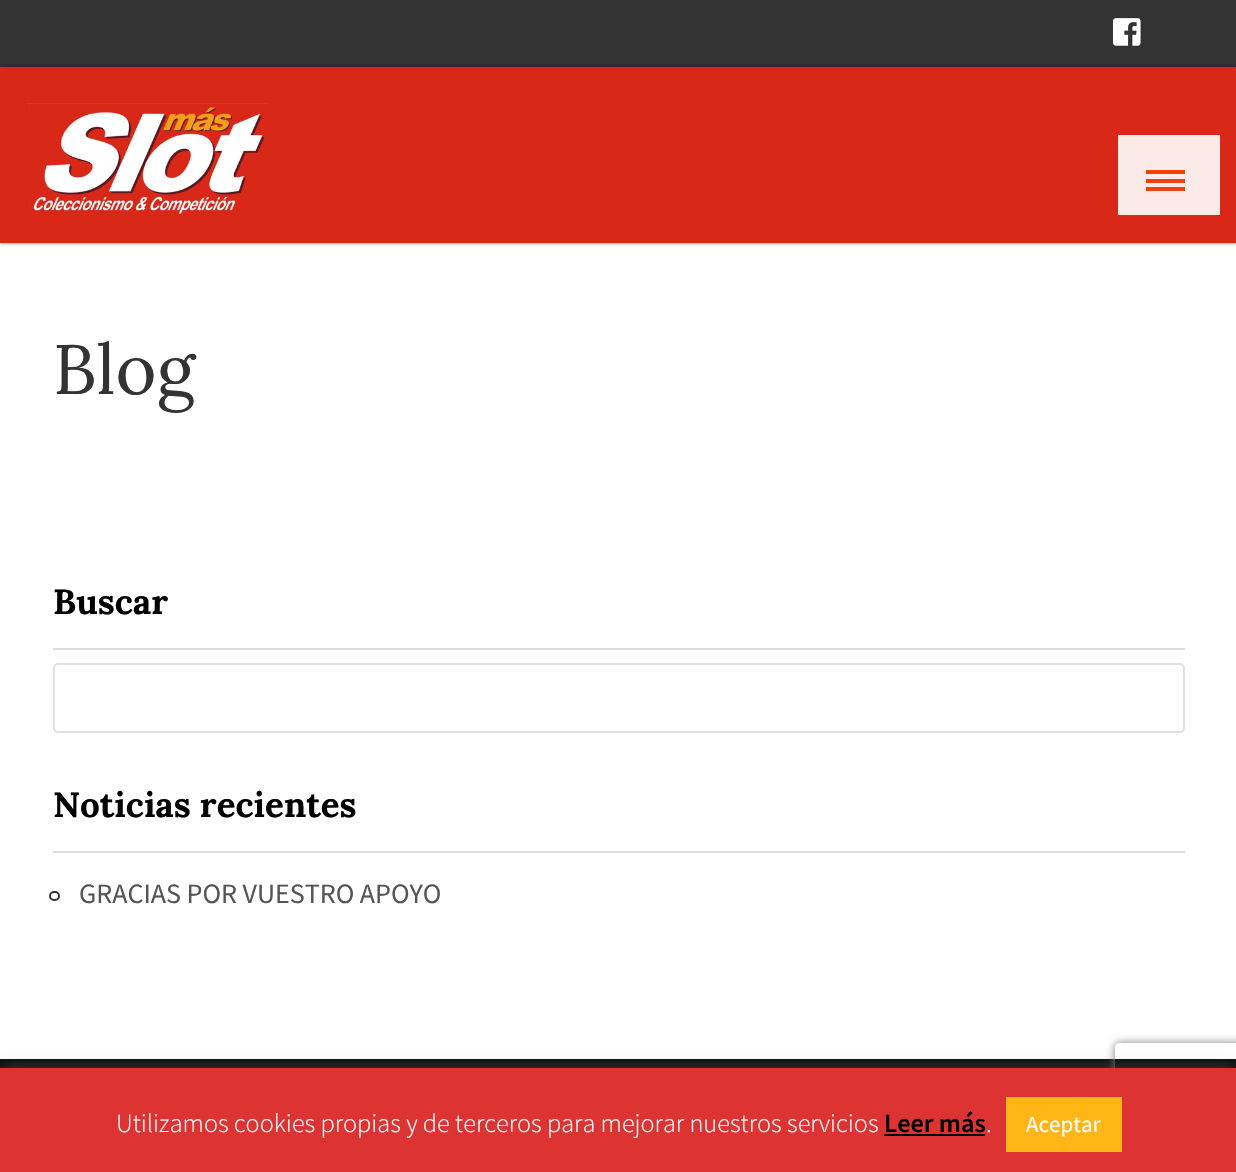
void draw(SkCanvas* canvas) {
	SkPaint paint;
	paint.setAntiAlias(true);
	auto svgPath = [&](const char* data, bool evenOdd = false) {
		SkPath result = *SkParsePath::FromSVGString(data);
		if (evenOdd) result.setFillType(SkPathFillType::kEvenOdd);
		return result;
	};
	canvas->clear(0xffffffff);
	paint.setColor(0xff333333);
	canvas->drawRect(SkRect::MakeXYWH(0, 0, 1236, 67), paint);
	canvas->drawImageRect(SkImages::DeferredFromEncodedData(SkData::MakeFromFileName("img1.png")), SkRect::MakeXYWH(1113, 18, 28, 28), SkSamplingOptions());
	paint.setColor(0x80000000);
	paint.setMaskFilter(SkMaskFilter::MakeBlur(kNormal_SkBlurStyle, 2));
	canvas->drawRect(SkRect::MakeXYWH(0, 67, 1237, 176), paint);
	paint.setMaskFilter(nullptr);
	paint.setColor(0xffd92818);
	canvas->drawRect(SkRect::MakeXYWH(0, 67, 1236, 176), paint);
	canvas->drawImageRect(SkImages::DeferredFromEncodedData(SkData::MakeFromFileName("img2.png")), SkRect::MakeXYWH(26, 103, 244, 113), SkSamplingOptions());
	paint.setColor(0xfffbeae8);
	canvas->drawRect(SkRect::MakeXYWH(1118, 135, 102, 80), paint);
	paint.setColor(0xfff24009);
	canvas->drawRect(SkRect::MakeXYWH(1146, 170, 39, 4), paint);
	canvas->drawRect(SkRect::MakeXYWH(1146, 179, 39, 4), paint);
	canvas->drawRect(SkRect::MakeXYWH(1146, 187, 39, 4), paint);
	SkFont f1(fontMgr->matchFamilyStyle("Lora", SkFontStyle::Normal()), 70);
	f1.setSubpixel(true);
	paint.setColor(0xff333333);
	canvas->drawString("Blog", 53, 394, f1, paint);
	paint.setColor(0xffdcdcdc);
	canvas->drawRect(SkRect::MakeXYWH(53, 648, 1132, 2), paint);
	SkFont f2(fontMgr->matchFamilyStyle("Lora", SkFontStyle::Bold()), 35);
	f2.setSubpixel(true);
	paint.setColor(0xff000000);
	canvas->drawString("Buscar", 53, 614, f2, paint);
	paint.setStroke(true);
	paint.setStrokeWidth(2);
	paint.setColor(0xffe0e0e0);
	canvas->drawRoundRect(SkRect::MakeXYWH(54, 664, 1130, 68), 4, 4, paint);
	paint.setStroke(false);
	paint.setColor(0xffdcdcdc);
	canvas->drawRect(SkRect::MakeXYWH(53, 851, 1132, 2), paint);
	paint.setColor(0xff000000);
	canvas->drawString("Noticias recientes", 53, 817, f2, paint);
	paint.setStroke(true);
	paint.setColor(0xff333333);
	canvas->drawRoundRect(SkRect::MakeXYWH(50, 892, 9, 8), 4, 4, paint);
	SkFont f3(fontMgr->matchFamilyStyle("Source Sans Pro", SkFontStyle::Normal()), 28);
	f3.setSubpixel(true);
	paint.setStroke(false);
	paint.setColor(0xff555555);
	canvas->drawString("GRACIAS POR VUESTRO APOYO", 79, 903, f3, paint);
	paint.setColor(0xff090909);
	canvas->drawRect(SkRect::MakeXYWH(0, 1059, 1236, 9), paint);
	paint.setColor(0x4dacabab);
	paint.setMaskFilter(SkMaskFilter::MakeBlur(kNormal_SkBlurStyle, 9));
	canvas->drawRect(SkRect::MakeXYWH(0, 1066, 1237, 105), paint);
	paint.setMaskFilter(nullptr);
	canvas->save();
	canvas->clipPath(svgPath("M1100 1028H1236V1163H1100ZM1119 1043H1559C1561 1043 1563 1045 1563 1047V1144C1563 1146 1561 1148 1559 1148H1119C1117 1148 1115 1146 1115 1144V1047C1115 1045 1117 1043 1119 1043Z", true), true);
	paint.setColor(0xff808080);
	paint.setMaskFilter(SkMaskFilter::MakeBlur(kNormal_SkBlurStyle, 4.5));
	canvas->drawRoundRect(SkRect::MakeXYWH(1115, 1043, 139, 105), 4, 4, paint);
	paint.setMaskFilter(nullptr);
	canvas->restore();
	paint.setColor(0xffdd3333);
	canvas->drawRect(SkRect::MakeXYWH(0, 1068, 1236, 104), paint);
	SkFont f4(fontMgr->matchFamilyStyle("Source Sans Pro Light", SkFontStyle(300, SkFontStyle::kNormal_Width, SkFontStyle::kUpright_Slant)), 26.25);
	f4.setSubpixel(true);
	paint.setColor(0xffffffff);
	canvas->drawString("Utilizamos cookies propias y de terceros para mejorar nuestros servicios", 116, 1132, f4, paint);
	SkFont f5(fontMgr->matchFamilyStyle("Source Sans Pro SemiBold", SkFontStyle(600, SkFontStyle::kNormal_Width, SkFontStyle::kUpright_Slant)), 26.25);
	f5.setSubpixel(true);
	paint.setColor(0xff000000);
	canvas->drawString("Leer más", 884, 1132, f5, paint);
	canvas->drawRect(SkRect::MakeXYWH(884, 1134, 101, 2), paint);
	paint.setColor(0xffffffff);
	canvas->drawString(".", 986, 1132, f4, paint);
	paint.setColor(0xffffb515);
	canvas->drawRect(SkRect::MakeXYWH(1006, 1097, 116, 55), paint);
	SkFont f6(fontMgr->matchFamilyStyle("Source Sans Pro", SkFontStyle::Normal()), 23);
	f6.setSubpixel(true);
	paint.setColor(0xffffffff);
	canvas->drawString("Aceptar", 1026, 1132, f6, paint);
}
